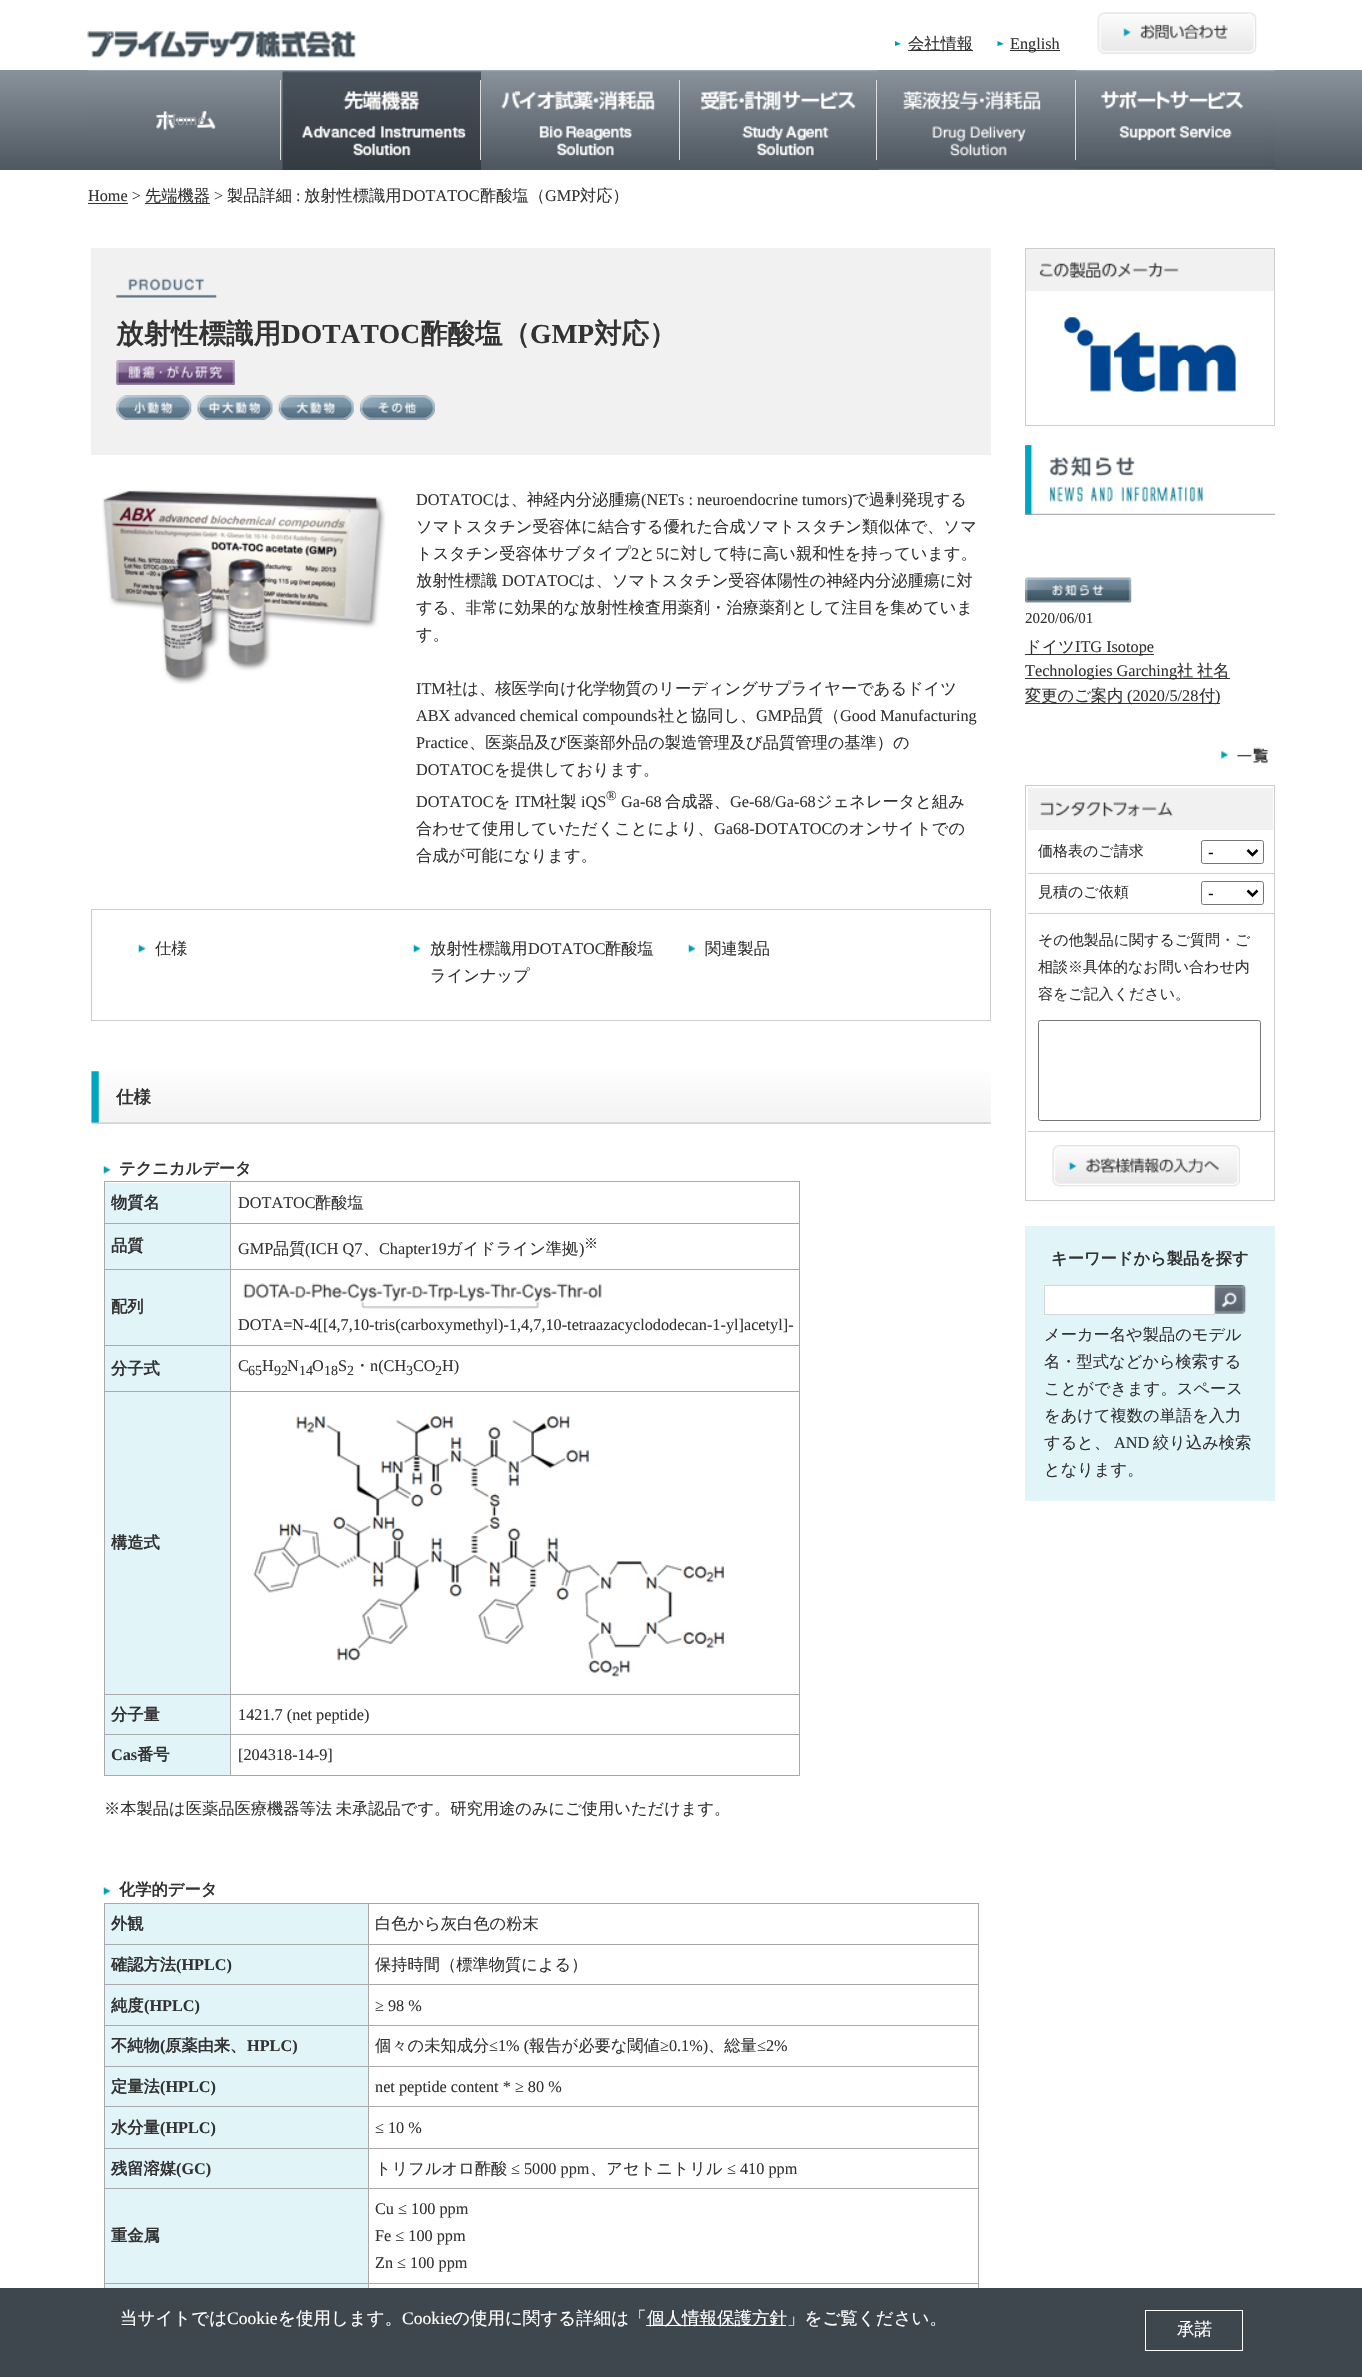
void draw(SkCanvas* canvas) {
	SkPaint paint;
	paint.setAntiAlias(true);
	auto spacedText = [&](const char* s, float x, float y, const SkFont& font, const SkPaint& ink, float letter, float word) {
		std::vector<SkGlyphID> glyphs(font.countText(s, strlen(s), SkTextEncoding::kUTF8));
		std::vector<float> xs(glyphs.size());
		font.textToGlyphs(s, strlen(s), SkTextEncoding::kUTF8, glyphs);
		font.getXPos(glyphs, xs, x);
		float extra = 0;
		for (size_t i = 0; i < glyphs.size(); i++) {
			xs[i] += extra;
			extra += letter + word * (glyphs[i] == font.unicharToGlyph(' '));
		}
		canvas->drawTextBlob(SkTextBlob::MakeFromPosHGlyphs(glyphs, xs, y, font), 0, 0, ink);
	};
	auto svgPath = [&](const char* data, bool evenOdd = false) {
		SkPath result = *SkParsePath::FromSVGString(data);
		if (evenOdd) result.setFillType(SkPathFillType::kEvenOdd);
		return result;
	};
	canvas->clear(0xffffffff);
	canvas->drawImageRect(SkImages::DeferredFromEncodedData(SkData::MakeFromFileName("img1.png")), SkRect::MakeXYWH(87, 31, 270, 27), SkSamplingOptions());
	paint.setColor(0xff009ab5);
	canvas->drawPath(svgPath("M895 46V41L901 44Z"), paint);
	paint.setColor(0xff333333);
	canvas->drawRect(SkRect::MakeXYWH(908, 50, 65, 1), paint);
	SkFont f1(fontMgr->matchFamilyStyle("WenQuanYi Zen Hei", SkFontStyle(500, SkFontStyle::kNormal_Width, SkFontStyle::kUpright_Slant)), 16.25);
	f1.setSubpixel(true);
	canvas->drawString("会社情報", 908, 49, f1, paint);
	paint.setColor(0xff009ab5);
	canvas->drawPath(svgPath("M997.5 46V41L1004 44Z"), paint);
	paint.setColor(0xff333333);
	canvas->drawRect(SkRect::MakeXYWH(1010, 50, 50, 1), paint);
	SkFont f2(fontMgr->matchFamilyStyle("Liberation Serif", SkFontStyle::Normal()), 16.25);
	f2.setSubpixel(true);
	canvas->drawString("English", 1010, 49, f2, paint);
	canvas->drawImageRect(SkImages::DeferredFromEncodedData(SkData::MakeFromFileName("img2.png")), SkRect::MakeXYWH(1097, 12, 160, 42), SkSamplingOptions());
	{
		const SkColor colors[] = {0xff89929b, 0xff4f5861};
		const float stops[] = {0, 1};
		const SkPoint ends[] = {{681, 70}, {681, 170}};
		paint.setShader(SkGradientShader::MakeLinear(ends, colors, stops, 2, SkTileMode::kClamp));
		paint.setAlpha(255);
	}
	canvas->drawRect(SkRect::MakeXYWH(0, 70, 1362, 100), paint);
	canvas->drawImageRect(SkImages::DeferredFromEncodedData(SkData::MakeFromFileName("img3.png")), SkRect::MakeXYWH(87, 70, 195, 61), SkSamplingOptions());
	paint.setShader(nullptr);
	paint.setColor(0xff989ea4);
	canvas->drawString("Home", 165, 125, f2, paint);
	paint.setColor(0xffdddddd);
	canvas->drawRect(SkRect::MakeXYWH(280, 80, 1, 80), paint);
	canvas->drawImageRect(SkImages::DeferredFromEncodedData(SkData::MakeFromFileName("img4.png")), SkRect::MakeXYWH(282, 70, 200, 100), SkSamplingOptions());
	canvas->drawRect(SkRect::MakeXYWH(480, 80, 1, 80), paint);
	canvas->drawImageRect(SkImages::DeferredFromEncodedData(SkData::MakeFromFileName("img5.png")), SkRect::MakeXYWH(481, 70, 199, 98), SkSamplingOptions());
	canvas->drawRect(SkRect::MakeXYWH(679, 80, 1, 80), paint);
	canvas->drawImageRect(SkImages::DeferredFromEncodedData(SkData::MakeFromFileName("img6.png")), SkRect::MakeXYWH(680, 70, 198, 86), SkSamplingOptions());
	canvas->drawRect(SkRect::MakeXYWH(876, 80, 1, 80), paint);
	canvas->drawImageRect(SkImages::DeferredFromEncodedData(SkData::MakeFromFileName("img7.png")), SkRect::MakeXYWH(878, 91, 199, 79), SkSamplingOptions());
	canvas->drawRect(SkRect::MakeXYWH(1075, 80, 1, 80), paint);
	canvas->drawImageRect(SkImages::DeferredFromEncodedData(SkData::MakeFromFileName("img8.png")), SkRect::MakeXYWH(1076, 70, 199, 100), SkSamplingOptions());
	paint.setColor(0xff333333);
	canvas->drawString("Home >", 88, 201, f2, paint);
	canvas->drawRect(SkRect::MakeXYWH(88, 203, 40, 1), paint);
	canvas->drawString("先端機器", 145, 201, f1, paint);
	canvas->drawRect(SkRect::MakeXYWH(145, 203, 65, 1), paint);
	canvas->drawString(">", 214, 201, f2, paint);
	canvas->drawString("製品詳細", 227, 201, f1, paint);
	canvas->drawString(":", 296, 201, f2, paint);
	canvas->drawString("放射性標識用", 304, 201, f1, paint);
	canvas->drawString("DOTATOC", 402, 201, f2, paint);
	canvas->drawString("酢酸塩（", 480, 201, f1, paint);
	canvas->drawString("GMP", 545, 201, f2, paint);
	canvas->drawString("対応）", 580, 201, f1, paint);
	paint.setColor(0xfff1f1f2);
	canvas->drawRect(SkRect::MakeXYWH(91, 248, 900, 207), paint);
	canvas->drawImageRect(SkImages::DeferredFromEncodedData(SkData::MakeFromFileName("img9.png")), SkRect::MakeXYWH(116, 278, 101, 20), SkSamplingOptions());
	SkFont f3(fontMgr->matchFamilyStyle("WenQuanYi Zen Hei", SkFontStyle::Bold()), 27.5);
	f3.setSubpixel(true);
	paint.setColor(0xff333333);
	canvas->drawString("放射性標識用", 116, 343, f3, paint);
	SkFont f4(fontMgr->matchFamilyStyle("Liberation Serif", SkFontStyle::Bold()), 27.5);
	f4.setSubpixel(true);
	canvas->drawString("DOTATOC", 281, 343, f4, paint);
	canvas->drawString("酢酸塩（", 420, 343, f3, paint);
	canvas->drawString("GMP", 530, 343, f4, paint);
	canvas->drawString("対応）", 594, 343, f3, paint);
	canvas->drawImageRect(SkImages::DeferredFromEncodedData(SkData::MakeFromFileName("img10.png")), SkRect::MakeXYWH(116, 360, 119, 25), SkSamplingOptions());
	canvas->drawImageRect(SkImages::DeferredFromEncodedData(SkData::MakeFromFileName("img11.png")), SkRect::MakeXYWH(116, 395, 76, 25), SkSamplingOptions());
	canvas->drawImageRect(SkImages::DeferredFromEncodedData(SkData::MakeFromFileName("img12.png")), SkRect::MakeXYWH(197, 395, 76, 25), SkSamplingOptions());
	canvas->drawImageRect(SkImages::DeferredFromEncodedData(SkData::MakeFromFileName("img13.png")), SkRect::MakeXYWH(278, 395, 76, 25), SkSamplingOptions());
	canvas->drawImageRect(SkImages::DeferredFromEncodedData(SkData::MakeFromFileName("img14.png")), SkRect::MakeXYWH(360, 395, 75, 25), SkSamplingOptions());
	canvas->drawImageRect(SkImages::DeferredFromEncodedData(SkData::MakeFromFileName("img15.png")), SkRect::MakeXYWH(102, 489, 284, 196), SkSamplingOptions());
	canvas->drawString("DOTATOC", 416, 505, f2, paint);
	canvas->drawString("は、神経内分泌腫瘍", 494, 505, f1, paint);
	canvas->drawString("(NETs : neuroendocrine tumors)", 641, 505, f2, paint);
	canvas->drawString("で過剰発現する", 852, 505, f1, paint);
	canvas->drawString("ソマトスタチン受容体に結合する優れた合成ソマトスタチン類似体で、ソマ", 416, 532, f1, paint);
	canvas->drawString("トスタチン受容体サブタイプ", 416, 559, f1, paint);
	canvas->drawString("2", 631, 559, f2, paint);
	canvas->drawString("と", 639, 559, f1, paint);
	canvas->drawString("5", 656, 559, f2, paint);
	canvas->drawString("に対して特に高い親和性を持っています。", 664, 559, f1, paint);
	canvas->drawString("放射性標識", 416, 586, f1, paint);
	canvas->drawString("DOTATOC", 502, 586, f2, paint);
	canvas->drawString("は、ソマトスタチン受容体陽性の神経内分泌腫瘍に対", 579, 586, f1, paint);
	canvas->drawString("する、非常に効果的な放射性検査用薬剤・治療薬剤として注目を集めていま", 416, 613, f1, paint);
	canvas->drawString("す。", 416, 640, f1, paint);
	canvas->drawString("ITM", 416, 694, f2, paint);
	canvas->drawString("社は、核医学向け化学物質のリーディングサプライヤーであるドイツ", 446, 694, f1, paint);
	canvas->drawString("ABX advanced chemical compounds", 416, 721, f2, paint);
	canvas->drawString("社と協同し、", 658, 721, f1, paint);
	canvas->drawString("GMP", 756, 721, f2, paint);
	canvas->drawString("品質（", 791, 721, f1, paint);
	canvas->drawString("Good Manufacturing", 840, 721, f2, paint);
	canvas->drawString("Practice", 416, 748, f2, paint);
	canvas->drawString("、医薬品及び医薬部外品の製造管理及び品質管理の基準）の", 469, 748, f1, paint);
	canvas->drawString("DOTATOC", 416, 775, f2, paint);
	canvas->drawString("を提供しております。", 494, 775, f1, paint);
	canvas->drawString("DOTATOC", 416, 807, f2, paint);
	canvas->drawString("を", 494, 807, f1, paint);
	canvas->drawString("ITM", 515, 807, f2, paint);
	canvas->drawString("社製", 544, 807, f1, paint);
	canvas->drawString("iQS", 581, 807, f2, paint);
	SkFont f5(fontMgr->matchFamilyStyle("Liberation Serif", SkFontStyle::Normal()), 14);
	f5.setSubpixel(true);
	canvas->drawString("®", 606, 800, f5, paint);
	canvas->drawString("Ga-68", 621, 807, f2, paint);
	canvas->drawString("合成器、", 665, 807, f1, paint);
	canvas->drawString("Ge-68/Ga-68", 730, 807, f2, paint);
	canvas->drawString("ジェネレータと組み", 816, 807, f1, paint);
	canvas->drawString("合わせて使用していただくことにより、", 416, 834, f1, paint);
	canvas->drawString("Ga68-DOTATOC", 714, 834, f2, paint);
	canvas->drawString("のオンサイトでの", 832, 834, f1, paint);
	canvas->drawString("合成が可能になります。", 416, 861, f1, paint);
	paint.setStroke(true);
	paint.setStrokeWidth(1);
	paint.setColor(0xffcccccc);
	canvas->drawRect(SkRect::MakeXYWH(91.5, 909.5, 899, 111), paint);
	canvas->drawImageRect(SkImages::DeferredFromEncodedData(SkData::MakeFromFileName("img16.png")), SkRect::MakeXYWH(138, 944, 9, 9), SkSamplingOptions());
	paint.setStroke(false);
	paint.setColor(0xff333333);
	canvas->drawString("仕様", 155, 954, f1, paint);
	canvas->drawImageRect(SkImages::DeferredFromEncodedData(SkData::MakeFromFileName("img17.png")), SkRect::MakeXYWH(413, 944, 9, 9), SkSamplingOptions());
	canvas->drawString("放射性標識用", 430, 954, f1, paint);
	canvas->drawString("DOTATOC", 528, 954, f2, paint);
	canvas->drawString("酢酸塩", 605, 954, f1, paint);
	canvas->drawString("ラインナップ", 430, 981, f1, paint);
	canvas->drawImageRect(SkImages::DeferredFromEncodedData(SkData::MakeFromFileName("img16.png")), SkRect::MakeXYWH(688, 944, 9, 9), SkSamplingOptions());
	canvas->drawString("関連製品", 705, 954, f1, paint);
	canvas->drawImageRect(SkImages::DeferredFromEncodedData(SkData::MakeFromFileName("img18.png")), SkRect::MakeXYWH(91, 1071, 900, 53), SkSamplingOptions());
	SkFont f6(fontMgr->matchFamilyStyle("WenQuanYi Zen Hei", SkFontStyle::Bold()), 17.5);
	f6.setSubpixel(true);
	canvas->drawString("仕様", 116, 1103, f6, paint);
	canvas->drawImageRect(SkImages::DeferredFromEncodedData(SkData::MakeFromFileName("img19.png")), SkRect::MakeXYWH(103, 1166, 9, 8), SkSamplingOptions());
	SkFont f7(fontMgr->matchFamilyStyle("WenQuanYi Zen Hei", SkFontStyle::Bold()), 16.25);
	f7.setSubpixel(true);
	canvas->drawString("テクニカルデータ", 119, 1174, f7, paint);
	paint.setColor(0xffaaaaaa);
	canvas->drawRect(SkRect::MakeXYWH(799, 1181, 1, 595), paint);
	canvas->drawRect(SkRect::MakeXYWH(104, 1775, 696, 1), paint);
	paint.setColor(0xffe1f4f8);
	canvas->drawRect(SkRect::MakeXYWH(105, 1183, 125, 40), paint);
	paint.setColor(0xffaaaaaa);
	canvas->drawRect(SkRect::MakeXYWH(230, 1181, 570, 1), paint);
	canvas->drawRect(SkRect::MakeXYWH(230, 1223, 570, 1), paint);
	canvas->drawRect(SkRect::MakeXYWH(230, 1269, 570, 1), paint);
	canvas->drawRect(SkRect::MakeXYWH(230, 1345, 570, 1), paint);
	canvas->drawRect(SkRect::MakeXYWH(230, 1391, 570, 1), paint);
	canvas->drawRect(SkRect::MakeXYWH(230, 1694, 570, 1), paint);
	canvas->drawRect(SkRect::MakeXYWH(230, 1734, 570, 1), paint);
	canvas->drawRect(SkRect::MakeXYWH(230, 1734, 1, 42), paint);
	canvas->drawRect(SkRect::MakeXYWH(104, 1734, 127, 1), paint);
	canvas->drawRect(SkRect::MakeXYWH(230, 1694, 1, 41), paint);
	canvas->drawRect(SkRect::MakeXYWH(104, 1694, 127, 1), paint);
	canvas->drawRect(SkRect::MakeXYWH(230, 1391, 1, 304), paint);
	canvas->drawRect(SkRect::MakeXYWH(104, 1391, 127, 1), paint);
	canvas->drawRect(SkRect::MakeXYWH(230, 1345, 1, 48), paint);
	canvas->drawRect(SkRect::MakeXYWH(104, 1345, 127, 1), paint);
	canvas->drawRect(SkRect::MakeXYWH(230, 1269, 1, 77), paint);
	canvas->drawRect(SkRect::MakeXYWH(104, 1269, 127, 1), paint);
	canvas->drawRect(SkRect::MakeXYWH(230, 1223, 1, 47), paint);
	canvas->drawRect(SkRect::MakeXYWH(104, 1223, 127, 1), paint);
	canvas->drawRect(SkRect::MakeXYWH(230, 1181, 1, 43), paint);
	canvas->drawRect(SkRect::MakeXYWH(104, 1181, 127, 1), paint);
	canvas->drawRect(SkRect::MakeXYWH(104, 1734, 1, 42), paint);
	canvas->drawRect(SkRect::MakeXYWH(104, 1694, 1, 41), paint);
	canvas->drawRect(SkRect::MakeXYWH(104, 1391, 1, 304), paint);
	canvas->drawRect(SkRect::MakeXYWH(104, 1345, 1, 48), paint);
	canvas->drawRect(SkRect::MakeXYWH(104, 1269, 1, 77), paint);
	canvas->drawRect(SkRect::MakeXYWH(104, 1223, 1, 47), paint);
	canvas->drawRect(SkRect::MakeXYWH(104, 1181, 1, 43), paint);
	paint.setColor(0xff333333);
	canvas->drawString("物質名", 111, 1208, f7, paint);
	canvas->drawString("DOTATOC", 238, 1208, f2, paint);
	canvas->drawString("酢酸塩", 315, 1208, f1, paint);
	paint.setColor(0xffe1f4f8);
	canvas->drawRect(SkRect::MakeXYWH(105, 1224, 125, 45), paint);
	paint.setColor(0xff333333);
	canvas->drawString("品質", 111, 1251, f7, paint);
	canvas->drawString("GMP", 238, 1254, f2, paint);
	canvas->drawString("品質", 273, 1254, f1, paint);
	canvas->drawString("(ICH Q7", 305, 1254, f2, paint);
	canvas->drawString("、", 363, 1254, f1, paint);
	canvas->drawString("Chapter19", 379, 1254, f2, paint);
	canvas->drawString("ガイドライン準拠", 446, 1254, f1, paint);
	canvas->drawString(")", 579, 1254, f2, paint);
	SkFont f8(fontMgr->matchFamilyStyle("WenQuanYi Zen Hei", SkFontStyle(500, SkFontStyle::kNormal_Width, SkFontStyle::kUpright_Slant)), 14);
	f8.setSubpixel(true);
	canvas->drawString("※", 584, 1248, f8, paint);
	paint.setColor(0xffe1f4f8);
	canvas->drawRect(SkRect::MakeXYWH(105, 1270, 125, 75), paint);
	paint.setColor(0xff333333);
	canvas->drawString("配列", 111, 1312, f7, paint);
	canvas->drawImageRect(SkImages::DeferredFromEncodedData(SkData::MakeFromFileName("img20.png")), SkRect::MakeXYWH(243, 1283, 359, 26), SkSamplingOptions());
	canvas->drawString("DOTA=N-4[[4,7,10-tris(carboxymethyl)-1,4,7,10-tetraazacyclododecan-1-yl]acetyl]-", 238, 1330, f2, paint);
	paint.setColor(0xffe1f4f8);
	canvas->drawRect(SkRect::MakeXYWH(105, 1346, 125, 45), paint);
	paint.setColor(0xff333333);
	canvas->drawString("分子式", 111, 1374, f7, paint);
	canvas->drawString("C", 238, 1371, f2, paint);
	canvas->drawString("H", 262, 1371, f2, paint);
	canvas->drawString("N", 287, 1371, f2, paint);
	canvas->drawString("O", 312, 1371, f2, paint);
	canvas->drawString("S", 338, 1371, f2, paint);
	canvas->drawString("・", 354, 1371, f1, paint);
	canvas->drawString("n(CH", 370, 1371, f2, paint);
	canvas->drawString("CO", 413, 1371, f2, paint);
	canvas->drawString("H)", 442, 1371, f2, paint);
	canvas->drawString("65", 248, 1375, f5, paint);
	canvas->drawString("92", 274, 1375, f5, paint);
	canvas->drawString("14", 299, 1375, f5, paint);
	canvas->drawString("18", 324, 1375, f5, paint);
	canvas->drawString("2", 347, 1375, f5, paint);
	canvas->drawString("3", 406, 1375, f5, paint);
	canvas->drawString("2", 435, 1375, f5, paint);
	paint.setColor(0xffe1f4f8);
	canvas->drawRect(SkRect::MakeXYWH(105, 1392, 125, 302), paint);
	paint.setColor(0xff333333);
	canvas->drawString("構造式", 111, 1548, f7, paint);
	canvas->drawImageRect(SkImages::DeferredFromEncodedData(SkData::MakeFromFileName("img21.png")), SkRect::MakeXYWH(253, 1409, 472, 268), SkSamplingOptions());
	paint.setColor(0xffe1f4f8);
	canvas->drawRect(SkRect::MakeXYWH(105, 1695, 125, 39), paint);
	paint.setColor(0xff333333);
	canvas->drawString("分子量", 111, 1720, f7, paint);
	canvas->drawString("1421.7 (net peptide)", 238, 1720, f2, paint);
	paint.setColor(0xffe1f4f8);
	canvas->drawRect(SkRect::MakeXYWH(105, 1735, 125, 40), paint);
	SkFont f9(fontMgr->matchFamilyStyle("Liberation Serif", SkFontStyle::Bold()), 16.25);
	f9.setSubpixel(true);
	paint.setColor(0xff333333);
	canvas->drawString("Cas", 111, 1760, f9, paint);
	canvas->drawString("番号", 137, 1760, f7, paint);
	canvas->drawString("[204318-14-9]", 238, 1760, f2, paint);
	spacedText("※本製品は医薬品医療機器等法 未承認品です。研究用途のみにご使用いただけます。", 104, 1814, f1, paint, 0, -1);
	canvas->drawImageRect(SkImages::DeferredFromEncodedData(SkData::MakeFromFileName("img22.png")), SkRect::MakeXYWH(103, 1887, 9, 8), SkSamplingOptions());
	canvas->drawString("化学的データ", 119, 1895, f7, paint);
	paint.setColor(0xffaaaaaa);
	canvas->drawRect(SkRect::MakeXYWH(978, 1903, 1, 385), paint);
	paint.setColor(0xffe1f4f8);
	canvas->drawRect(SkRect::MakeXYWH(105, 1904, 263, 40), paint);
	paint.setColor(0xffaaaaaa);
	canvas->drawRect(SkRect::MakeXYWH(368, 1903, 611, 1), paint);
	canvas->drawRect(SkRect::MakeXYWH(368, 1944, 611, 1), paint);
	canvas->drawRect(SkRect::MakeXYWH(368, 1984, 611, 1), paint);
	canvas->drawRect(SkRect::MakeXYWH(368, 2025, 611, 1), paint);
	canvas->drawRect(SkRect::MakeXYWH(368, 2066, 611, 1), paint);
	paint.setColor(0xffe1f4f8);
	canvas->drawRect(SkRect::MakeXYWH(105, 2067, 263, 81), paint);
	paint.setColor(0xffaaaaaa);
	canvas->drawRect(SkRect::MakeXYWH(368, 2106, 611, 1), paint);
	canvas->drawRect(SkRect::MakeXYWH(368, 2148, 611, 1), paint);
	canvas->drawRect(SkRect::MakeXYWH(368, 2188, 611, 1), paint);
	canvas->drawRect(SkRect::MakeXYWH(368, 2283, 611, 1), paint);
	canvas->drawRect(SkRect::MakeXYWH(368, 2283, 1, 5), paint);
	canvas->drawRect(SkRect::MakeXYWH(104, 2283, 265, 1), paint);
	canvas->drawRect(SkRect::MakeXYWH(368, 2188, 1, 96), paint);
	canvas->drawRect(SkRect::MakeXYWH(104, 2188, 265, 1), paint);
	canvas->drawRect(SkRect::MakeXYWH(368, 2148, 1, 41), paint);
	canvas->drawRect(SkRect::MakeXYWH(104, 2148, 265, 1), paint);
	canvas->drawRect(SkRect::MakeXYWH(368, 2106, 1, 43), paint);
	canvas->drawRect(SkRect::MakeXYWH(104, 2106, 265, 1), paint);
	canvas->drawRect(SkRect::MakeXYWH(368, 2066, 1, 42), paint);
	canvas->drawRect(SkRect::MakeXYWH(104, 2066, 265, 1), paint);
	canvas->drawRect(SkRect::MakeXYWH(368, 2025, 1, 43), paint);
	canvas->drawRect(SkRect::MakeXYWH(104, 2025, 265, 1), paint);
	canvas->drawRect(SkRect::MakeXYWH(368, 1984, 1, 42), paint);
	canvas->drawRect(SkRect::MakeXYWH(104, 1984, 265, 1), paint);
	canvas->drawRect(SkRect::MakeXYWH(368, 1944, 1, 41), paint);
	canvas->drawRect(SkRect::MakeXYWH(104, 1944, 265, 1), paint);
	canvas->drawRect(SkRect::MakeXYWH(368, 1903, 1, 42), paint);
	canvas->drawRect(SkRect::MakeXYWH(104, 1903, 265, 1), paint);
	canvas->drawRect(SkRect::MakeXYWH(104, 2283, 1, 5), paint);
	canvas->drawRect(SkRect::MakeXYWH(104, 2188, 1, 96), paint);
	canvas->drawRect(SkRect::MakeXYWH(104, 2148, 1, 41), paint);
	canvas->drawRect(SkRect::MakeXYWH(104, 2106, 1, 43), paint);
	canvas->drawRect(SkRect::MakeXYWH(104, 2066, 1, 42), paint);
	canvas->drawRect(SkRect::MakeXYWH(104, 2025, 1, 43), paint);
	canvas->drawRect(SkRect::MakeXYWH(104, 1984, 1, 42), paint);
	canvas->drawRect(SkRect::MakeXYWH(104, 1944, 1, 41), paint);
	canvas->drawRect(SkRect::MakeXYWH(104, 1903, 1, 42), paint);
	paint.setColor(0xff333333);
	canvas->drawString("外観", 111, 1929, f7, paint);
	canvas->drawString("白色から灰白色の粉末", 375, 1929, f1, paint);
	paint.setColor(0xffe1f4f8);
	canvas->drawRect(SkRect::MakeXYWH(105, 1945, 263, 39), paint);
	paint.setColor(0xff333333);
	canvas->drawString("確認方法", 111, 1970, f7, paint);
	canvas->drawString("(HPLC)", 176, 1970, f9, paint);
	canvas->drawString("保持時間（標準物質による）", 375, 1970, f1, paint);
	paint.setColor(0xffe1f4f8);
	canvas->drawRect(SkRect::MakeXYWH(105, 1985, 263, 40), paint);
	paint.setColor(0xff333333);
	canvas->drawString("純度", 111, 2011, f7, paint);
	canvas->drawString("(HPLC)", 144, 2011, f9, paint);
	canvas->drawString("≥ 98 %", 375, 2011, f2, paint);
	paint.setColor(0xffe1f4f8);
	canvas->drawRect(SkRect::MakeXYWH(105, 2026, 263, 40), paint);
	paint.setColor(0xff333333);
	canvas->drawString("不純物", 111, 2051, f7, paint);
	canvas->drawString("(", 160, 2051, f9, paint);
	canvas->drawString("原薬由来、", 165, 2051, f7, paint);
	canvas->drawString("HPLC)", 247, 2051, f9, paint);
	canvas->drawString("個々の未知成分", 375, 2051, f1, paint);
	canvas->drawString("≤1% (", 489, 2051, f2, paint);
	canvas->drawString("報告が必要な閾値", 529, 2051, f1, paint);
	canvas->drawString("≥0.1%)", 660, 2051, f2, paint);
	canvas->drawString("、総量", 708, 2051, f1, paint);
	canvas->drawString("≤2%", 757, 2051, f2, paint);
	canvas->drawString("定量法", 111, 2092, f7, paint);
	canvas->drawString("(HPLC)", 160, 2092, f9, paint);
	canvas->drawString("net peptide content * ≥ 80 %", 375, 2092, f2, paint);
	canvas->drawString("水分量", 111, 2133, f7, paint);
	canvas->drawString("(HPLC)", 160, 2133, f9, paint);
	canvas->drawString("≤ 10 %", 375, 2133, f2, paint);
	paint.setColor(0xffe1f4f8);
	canvas->drawRect(SkRect::MakeXYWH(105, 2149, 263, 39), paint);
	paint.setColor(0xff333333);
	canvas->drawString("残留溶媒", 111, 2174, f7, paint);
	canvas->drawString("(GC)", 176, 2174, f9, paint);
	canvas->drawString("トリフルオロ酢酸", 375, 2174, f1, paint);
	canvas->drawString("≤ 5000 ppm", 511, 2174, f2, paint);
	canvas->drawString("、アセトニトリル", 590, 2174, f1, paint);
	canvas->drawString("≤ 410 ppm", 727, 2174, f2, paint);
	paint.setColor(0xffe1f4f8);
	canvas->drawRect(SkRect::MakeXYWH(105, 2189, 263, 94), paint);
	paint.setColor(0xff333333);
	canvas->drawString("重金属", 111, 2241, f7, paint);
	canvas->drawString("Cu ≤ 100 ppm", 375, 2214, f2, paint);
	canvas->drawString("Fe ≤ 100 ppm", 375, 2241, f2, paint);
	canvas->drawString("Zn ≤ 100 ppm", 375, 2268, f2, paint);
	paint.setColor(0xffe1f4f8);
	canvas->drawRect(SkRect::MakeXYWH(105, 2284, 263, 4), paint);
	paint.setStroke(true);
	paint.setColor(0xffcccccc);
	canvas->drawRect(SkRect::MakeXYWH(1025.5, 248.5, 249, 177), paint);
	paint.setStroke(false);
	paint.setColor(0xfff1f1f2);
	canvas->drawRect(SkRect::MakeXYWH(1026, 249, 248, 42), paint);
	canvas->drawImageRect(SkImages::DeferredFromEncodedData(SkData::MakeFromFileName("img23.png")), SkRect::MakeXYWH(1039, 262, 140, 16), SkSamplingOptions());
	canvas->drawImageRect(SkImages::DeferredFromEncodedData(SkData::MakeFromFileName("img24.png")), SkRect::MakeXYWH(1064, 317, 172, 75), SkSamplingOptions());
	canvas->drawImageRect(SkImages::DeferredFromEncodedData(SkData::MakeFromFileName("img25.png")), SkRect::MakeXYWH(1025, 445, 250, 70), SkSamplingOptions());
	canvas->drawImageRect(SkImages::DeferredFromEncodedData(SkData::MakeFromFileName("img26.png")), SkRect::MakeXYWH(1025, 577, 107, 26), SkSamplingOptions());
	SkFont f10(fontMgr->matchFamilyStyle("Liberation Serif", SkFontStyle::Normal()), 15);
	f10.setSubpixel(true);
	paint.setColor(0xff333333);
	canvas->drawString("2020/06/01", 1025, 623, f10, paint);
	canvas->drawRect(SkRect::MakeXYWH(1025, 654, 129, 1), paint);
	canvas->drawString("ドイツ", 1025, 652, f1, paint);
	canvas->drawString("ITG Isotope", 1075, 652, f2, paint);
	canvas->drawRect(SkRect::MakeXYWH(1025, 678, 205, 1), paint);
	canvas->drawString("Technologies Garching", 1025, 676, f2, paint);
	canvas->drawString("社", 1177, 676, f1, paint);
	canvas->drawString("社名", 1197, 676, f1, paint);
	canvas->drawRect(SkRect::MakeXYWH(1025, 703, 195, 1), paint);
	canvas->drawString("変更のご案内", 1025, 701, f1, paint);
	canvas->drawString("(2020/5/28", 1127, 701, f2, paint);
	canvas->drawString("付", 1199, 701, f1, paint);
	canvas->drawString(")", 1215, 701, f2, paint);
	canvas->drawImageRect(SkImages::DeferredFromEncodedData(SkData::MakeFromFileName("img27.png")), SkRect::MakeXYWH(1221, 747, 48, 17), SkSamplingOptions());
	paint.setColor(0xffcccccc);
	canvas->drawRect(SkRect::MakeXYWH(1025, 785, 250, 1), paint);
	canvas->drawRect(SkRect::MakeXYWH(1274, 785, 1, 416), paint);
	canvas->drawRect(SkRect::MakeXYWH(1025, 1200, 250, 1), paint);
	canvas->drawRect(SkRect::MakeXYWH(1025, 785, 1, 416), paint);
	paint.setColor(0xfff1f1f2);
	canvas->drawRect(SkRect::MakeXYWH(1028, 788, 245, 42), paint);
	canvas->drawImageRect(SkImages::DeferredFromEncodedData(SkData::MakeFromFileName("img28.png")), SkRect::MakeXYWH(1040, 802, 133, 15), SkSamplingOptions());
	SkFont f11(fontMgr->matchFamilyStyle("WenQuanYi Zen Hei", SkFontStyle(500, SkFontStyle::kNormal_Width, SkFontStyle::kUpright_Slant)), 15);
	f11.setSubpixel(true);
	paint.setColor(0xff333333);
	canvas->drawString("価格表のご請求", 1038, 856, f11, paint);
	paint.setColor(0xffcccccc);
	canvas->drawRect(SkRect::MakeXYWH(1028, 873, 246, 1), paint);
	paint.setStroke(true);
	paint.setColor(0xff767676);
	canvas->drawRoundRect(SkRect::MakeXYWH(1201.5, 840.5, 62, 23), 2, 2, paint);
	paint.setStrokeWidth(2.5);
	paint.setColor(0xff000000);
	canvas->drawPath(svgPath("M1247.5 850L1252.5 855L1257.5 850"), paint);
	SkFont f12(fontMgr->matchFamilyStyle("Liberation Sans", SkFontStyle::Normal()), 17);
	f12.setSubpixel(true);
	paint.setStroke(false);
	canvas->drawString("-", 1208, 858, f12, paint);
	paint.setColor(0xff333333);
	canvas->drawString("見積のご依頼", 1038, 897, f11, paint);
	paint.setColor(0xffcccccc);
	canvas->drawRect(SkRect::MakeXYWH(1028, 913, 246, 1), paint);
	paint.setStroke(true);
	paint.setStrokeWidth(1);
	paint.setColor(0xff767676);
	canvas->drawRoundRect(SkRect::MakeXYWH(1201.5, 881.5, 62, 23), 2, 2, paint);
	paint.setStrokeWidth(2.5);
	paint.setColor(0xff000000);
	canvas->drawPath(svgPath("M1247.5 890.5L1252.5 895.5L1257.5 890.5"), paint);
	paint.setStroke(false);
	canvas->drawString("-", 1208, 899, f12, paint);
	paint.setColor(0xffcccccc);
	canvas->drawRect(SkRect::MakeXYWH(1028, 1131, 246, 1), paint);
	paint.setColor(0xff333333);
	canvas->drawString("その他製品に関するご質問・ご", 1038, 945, f11, paint);
	canvas->drawString("相談※具体的なお問い合わせ内", 1038, 972, f11, paint);
	canvas->drawString("容をご記入ください。", 1038, 999, f11, paint);
	paint.setStroke(true);
	paint.setStrokeWidth(1);
	paint.setColor(0xff767676);
	canvas->drawRoundRect(SkRect::MakeXYWH(1038.5, 1020.5, 222, 100), 2, 2, paint);
	canvas->drawImageRect(SkImages::DeferredFromEncodedData(SkData::MakeFromFileName("img29.png")), SkRect::MakeXYWH(1052, 1145, 188, 42), SkSamplingOptions());
	paint.setStroke(false);
	paint.setColor(0xffe1f4f8);
	canvas->drawRect(SkRect::MakeXYWH(1025, 1226, 250, 275), paint);
	paint.setColor(0xff333333);
	canvas->drawString("キーワードから製品を探す", 1051, 1264, f7, paint);
	paint.setColor(0xffffffff);
	canvas->drawRect(SkRect::MakeXYWH(1044.5, 1285.5, 170, 29), paint);
	paint.setStroke(true);
	paint.setColor(0xffd2d8dd);
	canvas->drawRect(SkRect::MakeXYWH(1044.5, 1285.5, 170, 29), paint);
	canvas->drawImageRect(SkImages::DeferredFromEncodedData(SkData::MakeFromFileName("img30.png")), SkRect::MakeXYWH(1215, 1285, 32, 29), SkSamplingOptions());
	paint.setStroke(false);
	paint.setColor(0xff333333);
	canvas->drawString("メーカー名や製品のモデル", 1044, 1340, f1, paint);
	canvas->drawString("名・型式などから検索する", 1044, 1367, f1, paint);
	canvas->drawString("ことができます。スペース", 1044, 1394, f1, paint);
	canvas->drawString("をあけて複数の単語を入力", 1044, 1421, f1, paint);
	canvas->drawString("すると、", 1044, 1448, f1, paint);
	canvas->drawString("AND", 1114, 1448, f2, paint);
	canvas->drawString("絞り込み検索", 1153, 1448, f1, paint);
	canvas->drawString("となります。", 1044, 1475, f1, paint);
	paint.setColor(0xff3e464e);
	canvas->drawRect(SkRect::MakeXYWH(0, 2288, 1362, 89), paint);
	SkFont f13(fontMgr->matchFamilyStyle("WenQuanYi Zen Hei", SkFontStyle(500, SkFontStyle::kNormal_Width, SkFontStyle::kUpright_Slant)), 17.5);
	f13.setSubpixel(true);
	paint.setColor(0xffffffff);
	canvas->drawString("当サイトでは", 120, 2324, f13, paint);
	SkFont f14(fontMgr->matchFamilyStyle("Liberation Serif", SkFontStyle::Normal()), 17.5);
	f14.setSubpixel(true);
	canvas->drawString("Cookie", 227, 2324, f14, paint);
	canvas->drawString("を使用します。", 278, 2324, f13, paint);
	canvas->drawString("Cookie", 402, 2324, f14, paint);
	canvas->drawString("の使用に関する詳細は「", 452, 2324, f13, paint);
	canvas->drawRect(SkRect::MakeXYWH(646, 2325, 140, 1), paint);
	canvas->drawString("個人情報保護方針」をご覧ください。", 647, 2324, f13, paint);
	paint.setStroke(true);
	canvas->drawRect(SkRect::MakeXYWH(1145.5, 2310.5, 97, 40), paint);
	paint.setStroke(false);
	canvas->drawString("承諾", 1177, 2335, f13, paint);
}
